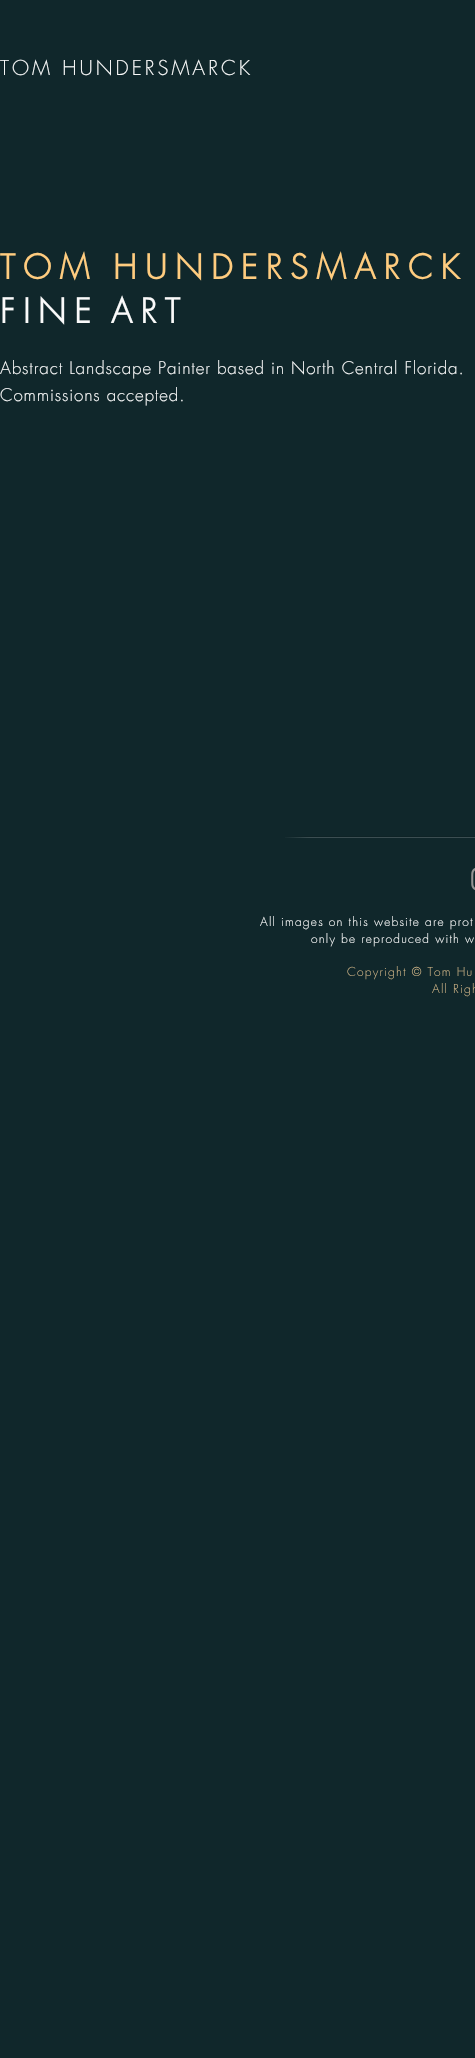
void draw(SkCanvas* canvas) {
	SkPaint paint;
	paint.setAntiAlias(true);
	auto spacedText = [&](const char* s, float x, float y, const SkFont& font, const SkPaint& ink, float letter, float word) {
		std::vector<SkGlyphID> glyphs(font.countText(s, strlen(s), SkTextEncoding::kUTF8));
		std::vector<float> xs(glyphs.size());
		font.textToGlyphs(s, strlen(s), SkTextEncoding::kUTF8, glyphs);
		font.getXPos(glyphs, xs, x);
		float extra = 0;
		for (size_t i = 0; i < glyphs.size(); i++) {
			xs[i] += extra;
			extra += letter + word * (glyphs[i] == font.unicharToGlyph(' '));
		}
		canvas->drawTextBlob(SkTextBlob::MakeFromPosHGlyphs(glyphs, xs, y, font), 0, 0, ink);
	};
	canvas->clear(0xff10272b);
	SkFont f1(fontMgr->matchFamilyStyle("futura", SkFontStyle(300, SkFontStyle::kNormal_Width, SkFontStyle::kUpright_Slant)), 20);
	f1.setSubpixel(true);
	paint.setColor(0xfffafafa);
	spacedText("TOM HUNDERSMARCK", 0, 75, f1, paint, 3, 0);
	SkFont f2(fontMgr->matchFamilyStyle("futura", SkFontStyle::Bold()), 33);
	f2.setSubpixel(true);
	paint.setColor(0xffffcc7f);
	spacedText("TOM", 0, 279, f2, paint, 8.25, 0);
	spacedText("HUNDERSMARCK", 113, 279, f2, paint, 8.25, 0);
	paint.setColor(0xfffafafa);
	spacedText("FINE", 0, 323, f2, paint, 8.25, 0);
	spacedText("ART", 111, 323, f2, paint, 8.25, 0);
	SkFont f3(fontMgr->matchFamilyStyle("futura", SkFontStyle(300, SkFontStyle::kNormal_Width, SkFontStyle::kUpright_Slant)), 17);
	f3.setSubpixel(true);
	spacedText("Abstract Landscape Painter based in North Central Florida.", 0, 374, f3, paint, 0.85, 0);
	spacedText("Commissions accepted.", 0, 401, f3, paint, 0.85, 0);
	canvas->drawImageRect(SkImages::DeferredFromEncodedData(SkData::MakeFromFileName("img1.png")), SkRect::MakeXYWH(285, 836, 25, 2), SkSamplingOptions());
	canvas->drawImageRect(SkImages::DeferredFromEncodedData(SkData::MakeFromFileName("img2.png")), SkRect::MakeXYWH(310, 836, 165, 2), SkSamplingOptions());
	canvas->drawImageRect(SkImages::DeferredFromEncodedData(SkData::MakeFromFileName("img3.png")), SkRect::MakeXYWH(471, 868, 4, 22), SkSamplingOptions());
	SkFont f4(fontMgr->matchFamilyStyle("futura", SkFontStyle(300, SkFontStyle::kNormal_Width, SkFontStyle::kUpright_Slant)), 12);
	f4.setSubpixel(true);
	spacedText("All images on this website are prot", 260, 926, f4, paint, 1.2, 0);
	spacedText("only be reproduced with w", 311, 943, f4, paint, 1.2, 0);
	paint.setColor(0xffcfb486);
	spacedText("Copyright © Tom Hu", 347, 976, f4, paint, 1.2, 0);
	spacedText("All Righ", 432, 993, f4, paint, 1.2, 0);
}
